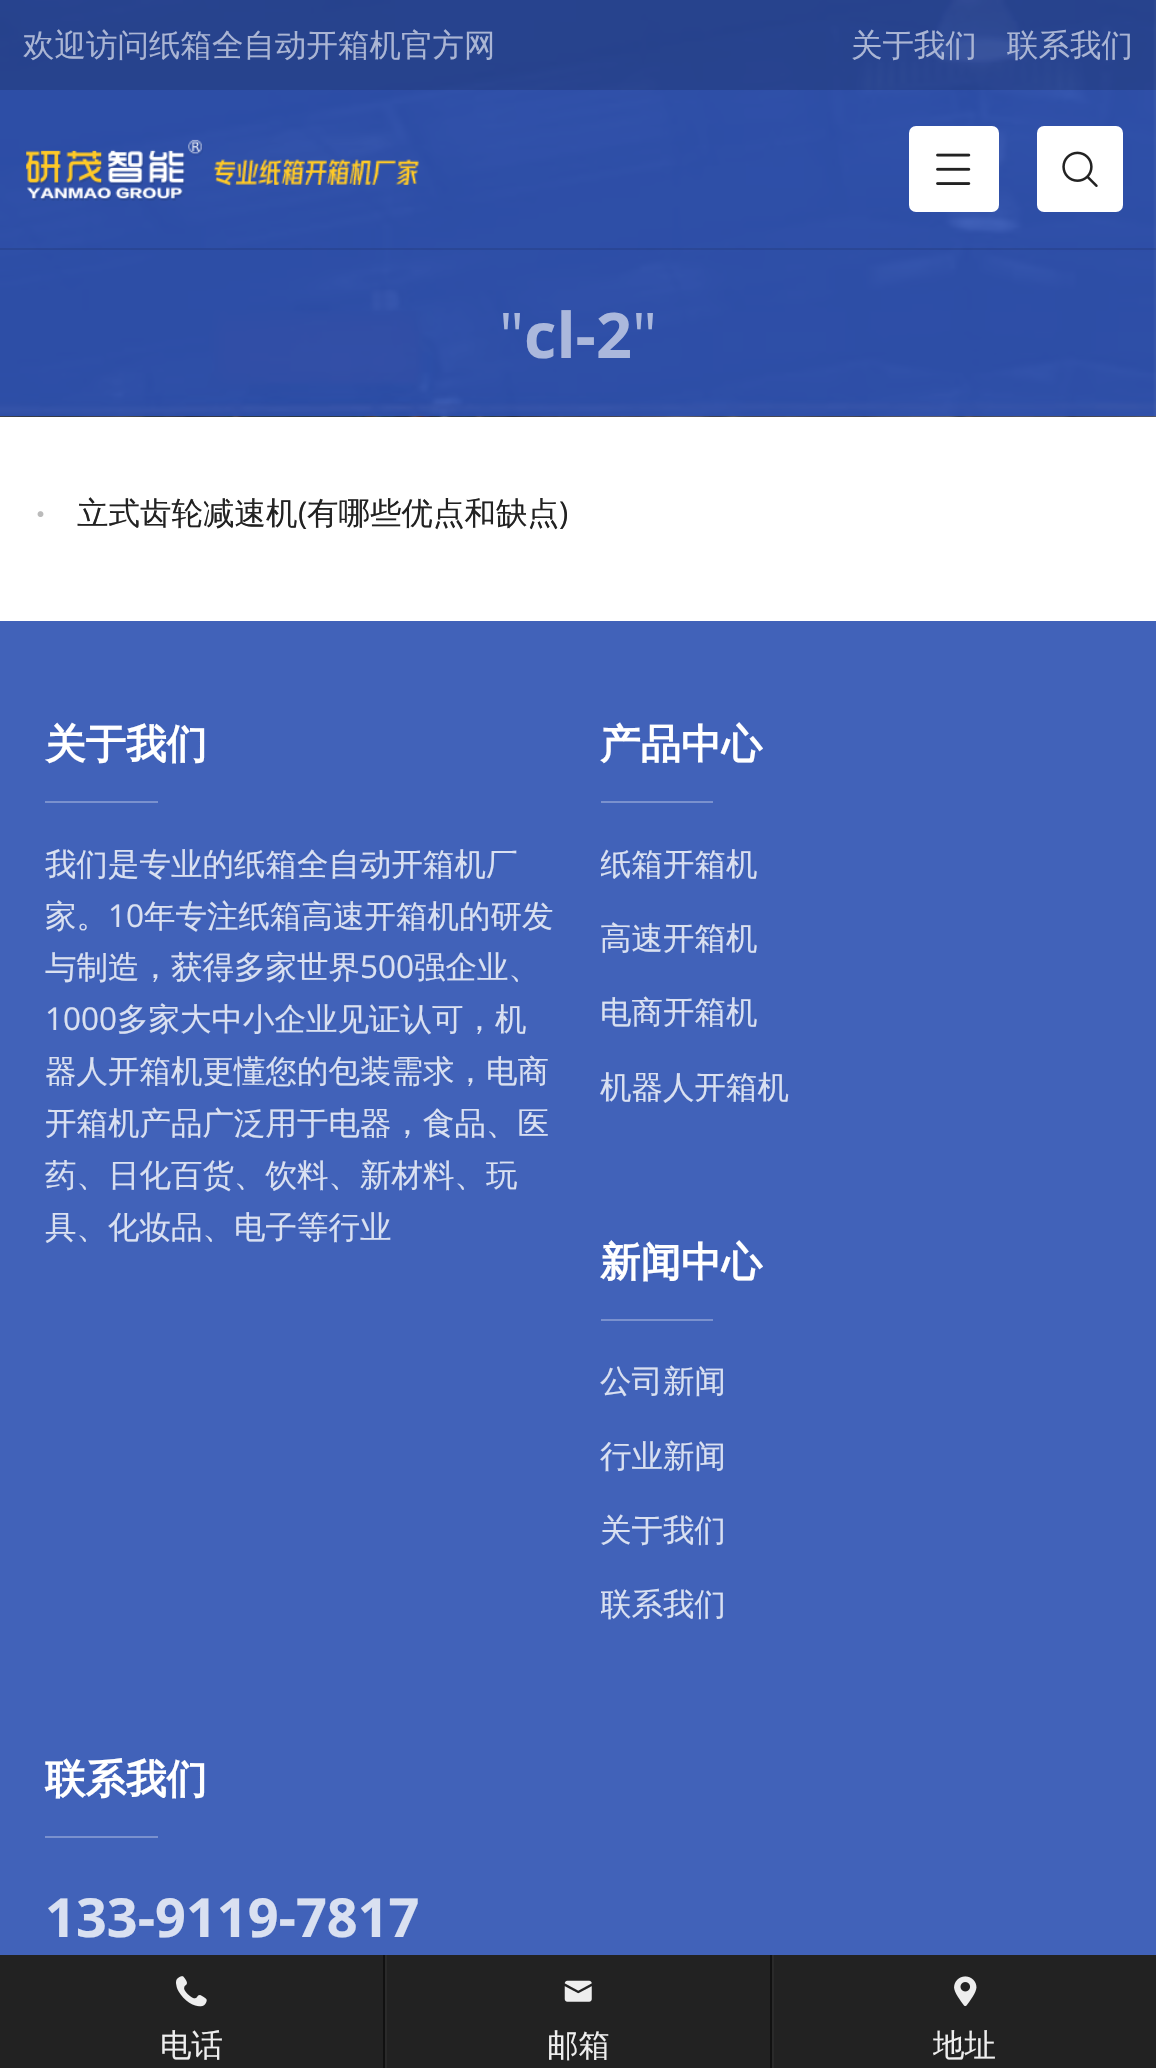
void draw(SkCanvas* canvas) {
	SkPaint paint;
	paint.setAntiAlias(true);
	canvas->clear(0xffffffff);
	canvas->drawImageRect(SkImages::DeferredFromEncodedData(SkData::MakeFromFileName("img1.png")), SkRect::MakeXYWH(0, 0, 1156, 417), SkSamplingOptions());
	paint.setColor(0x1a000000);
	canvas->drawRect(SkRect::MakeXYWH(0, 248, 1156, 2), paint);
	paint.setColor(0x26000000);
	canvas->drawRect(SkRect::MakeXYWH(0, 0, 1156, 90), paint);
	SkFont f1(fontMgr->matchFamilyStyle("WenQuanYi Zen Hei", SkFontStyle(500, SkFontStyle::kNormal_Width, SkFontStyle::kUpright_Slant)), 31.5);
	f1.setSubpixel(true);
	paint.setColor(0xffaab5d4);
	canvas->drawString("欢迎访问纸箱全自动开箱机官方网", 23, 56, f1, paint);
	canvas->drawString("关于我们", 851, 56, f1, paint);
	canvas->drawString("联系我们", 1007, 56, f1, paint);
	canvas->drawImageRect(SkImages::DeferredFromEncodedData(SkData::MakeFromFileName("img2.png")), SkRect::MakeXYWH(26, 139, 394, 62), SkSamplingOptions());
	paint.setColor(0xffffffff);
	canvas->drawRoundRect(SkRect::MakeXYWH(909, 126, 90, 86), 7, 7, paint);
	canvas->drawImageRect(SkImages::DeferredFromEncodedData(SkData::MakeFromFileName("img3.png")), SkRect::MakeXYWH(936, 153, 35, 32), SkSamplingOptions());
	canvas->drawRoundRect(SkRect::MakeXYWH(1037, 126, 86, 86), 7, 7, paint);
	canvas->drawImageRect(SkImages::DeferredFromEncodedData(SkData::MakeFromFileName("img4.png")), SkRect::MakeXYWH(1062, 151, 36, 36), SkSamplingOptions());
	SkFont f2(fontMgr->matchFamilyStyle("Open Sans", SkFontStyle::Normal()), 63);
	f2.setSubpixel(true);
	paint.setColor(0xffabb8dc);
	canvas->drawString("\"", 499, 358, f2, paint);
	SkFont f3(fontMgr->matchFamilyStyle("Open Sans", SkFontStyle::Bold()), 63);
	f3.setSubpixel(true);
	canvas->drawString("cl-2", 524, 358, f3, paint);
	canvas->drawString("\"", 632, 358, f2, paint);
	paint.setColor(0xff222222);
	canvas->drawString("立式齿轮减速机 有哪些优点和缺点", 77, 524, f1, paint);
	canvas->drawImageRect(SkImages::DeferredFromEncodedData(SkData::MakeFromFileName("img5.png")), SkRect::MakeXYWH(37, 511, 7, 6), SkSamplingOptions());
	SkFont f4(fontMgr->matchFamilyStyle("Open Sans", SkFontStyle::Normal()), 31.5);
	f4.setSubpixel(true);
	canvas->drawString("(", 298, 524, f4, paint);
	canvas->drawString(")", 559, 524, f4, paint);
	paint.setColor(0xff4162b9);
	canvas->drawRect(SkRect::MakeXYWH(0, 621, 1156, 1334), paint);
	SkFont f5(fontMgr->matchFamilyStyle("WenQuanYi Zen Hei", SkFontStyle::Bold()), 40.5);
	f5.setSubpixel(true);
	paint.setColor(0xffffffff);
	canvas->drawString("关于我们", 45, 758, f5, paint);
	paint.setColor(0xff7a91ce);
	canvas->drawRect(SkRect::MakeXYWH(45, 801, 113, 2), paint);
	paint.setColor(0xffd9e0f1);
	canvas->drawString("我们是专业的纸箱全自动开箱机厂", 45, 875, f1, paint);
	canvas->drawString("家。", 45, 927, f1, paint);
	canvas->drawString("10", 108, 927, f4, paint);
	canvas->drawString("年专注纸箱高速开箱机的研发", 144, 927, f1, paint);
	canvas->drawString("与制造，获得多家世界", 45, 978, f1, paint);
	canvas->drawString("500", 360, 978, f4, paint);
	canvas->drawString("强企业、", 414, 978, f1, paint);
	canvas->drawString("1000", 45, 1030, f4, paint);
	canvas->drawString("多家大中小企业见证认可，机", 117, 1030, f1, paint);
	canvas->drawString("器人开箱机更懂您的包装需求，电商", 45, 1082, f1, paint);
	canvas->drawString("开箱机产品广泛用于电器，食品、医", 45, 1134, f1, paint);
	canvas->drawString("药、日化百货、饮料、新材料、玩", 45, 1186, f1, paint);
	canvas->drawString("具、化妆品、电子等行业", 45, 1238, f1, paint);
	paint.setColor(0xffffffff);
	canvas->drawString("产品中心", 600, 758, f5, paint);
	paint.setColor(0xff7a91ce);
	canvas->drawRect(SkRect::MakeXYWH(601, 801, 112, 2), paint);
	canvas->save();
	canvas->clipRect(SkRect::MakeXYWH(601, 837, 511, 52));
	paint.setColor(0xffd9e0f1);
	canvas->drawString("纸箱开箱机", 600, 875, f1, paint);
	canvas->restore();
	canvas->drawString("高速开箱机", 600, 949, f1, paint);
	canvas->drawString("电商开箱机", 600, 1023, f1, paint);
	canvas->drawString("机器人开箱机", 600, 1098, f1, paint);
	paint.setColor(0xffffffff);
	canvas->drawString("新闻中心", 600, 1276, f5, paint);
	paint.setColor(0xff7a91ce);
	canvas->drawRect(SkRect::MakeXYWH(601, 1319, 112, 2), paint);
	paint.setColor(0xffd9e0f1);
	canvas->drawString("公司新闻", 600, 1392, f1, paint);
	canvas->drawString("行业新闻", 600, 1467, f1, paint);
	canvas->drawString("关于我们", 600, 1541, f1, paint);
	canvas->save();
	canvas->clipRect(SkRect::MakeXYWH(601, 1577, 511, 52));
	canvas->drawString("联系我们", 600, 1615, f1, paint);
	canvas->restore();
	paint.setColor(0xffffffff);
	canvas->drawString("联系我们", 45, 1793, f5, paint);
	paint.setColor(0xff7a91ce);
	canvas->drawRect(SkRect::MakeXYWH(45, 1836, 113, 2), paint);
	SkFont f6(fontMgr->matchFamilyStyle("Open Sans", SkFontStyle::Bold()), 54);
	f6.setSubpixel(true);
	paint.setColor(0xffd9e0f1);
	canvas->drawString("133-9119-7817", 45, 1937, f6, paint);
	paint.setColor(0xff222222);
	canvas->drawRect(SkRect::MakeXYWH(0, 1955, 1156, 113), paint);
	paint.setColor(0xff111111);
	canvas->drawRect(SkRect::MakeXYWH(383, 1955, 2, 113), paint);
	canvas->drawImageRect(SkImages::DeferredFromEncodedData(SkData::MakeFromFileName("img6.png")), SkRect::MakeXYWH(176, 1976, 31, 31), SkSamplingOptions());
	paint.setColor(0xffeeeeee);
	canvas->drawString("电话", 160, 2056, f1, paint);
	paint.setColor(0xff111111);
	canvas->drawRect(SkRect::MakeXYWH(770, 1955, 2, 113), paint);
	paint.setColor(0xff2a2a2a);
	canvas->drawRect(SkRect::MakeXYWH(385, 1955, 2, 113), paint);
	canvas->drawImageRect(SkImages::DeferredFromEncodedData(SkData::MakeFromFileName("img7.png")), SkRect::MakeXYWH(564, 1980, 28, 22), SkSamplingOptions());
	paint.setColor(0xffeeeeee);
	canvas->drawString("邮箱", 547, 2056, f1, paint);
	paint.setColor(0xff2a2a2a);
	canvas->drawRect(SkRect::MakeXYWH(772, 1955, 2, 113), paint);
	canvas->drawImageRect(SkImages::DeferredFromEncodedData(SkData::MakeFromFileName("img8.png")), SkRect::MakeXYWH(954, 1976, 23, 31), SkSamplingOptions());
	paint.setColor(0xffeeeeee);
	canvas->drawString("地址", 933, 2056, f1, paint);
}
